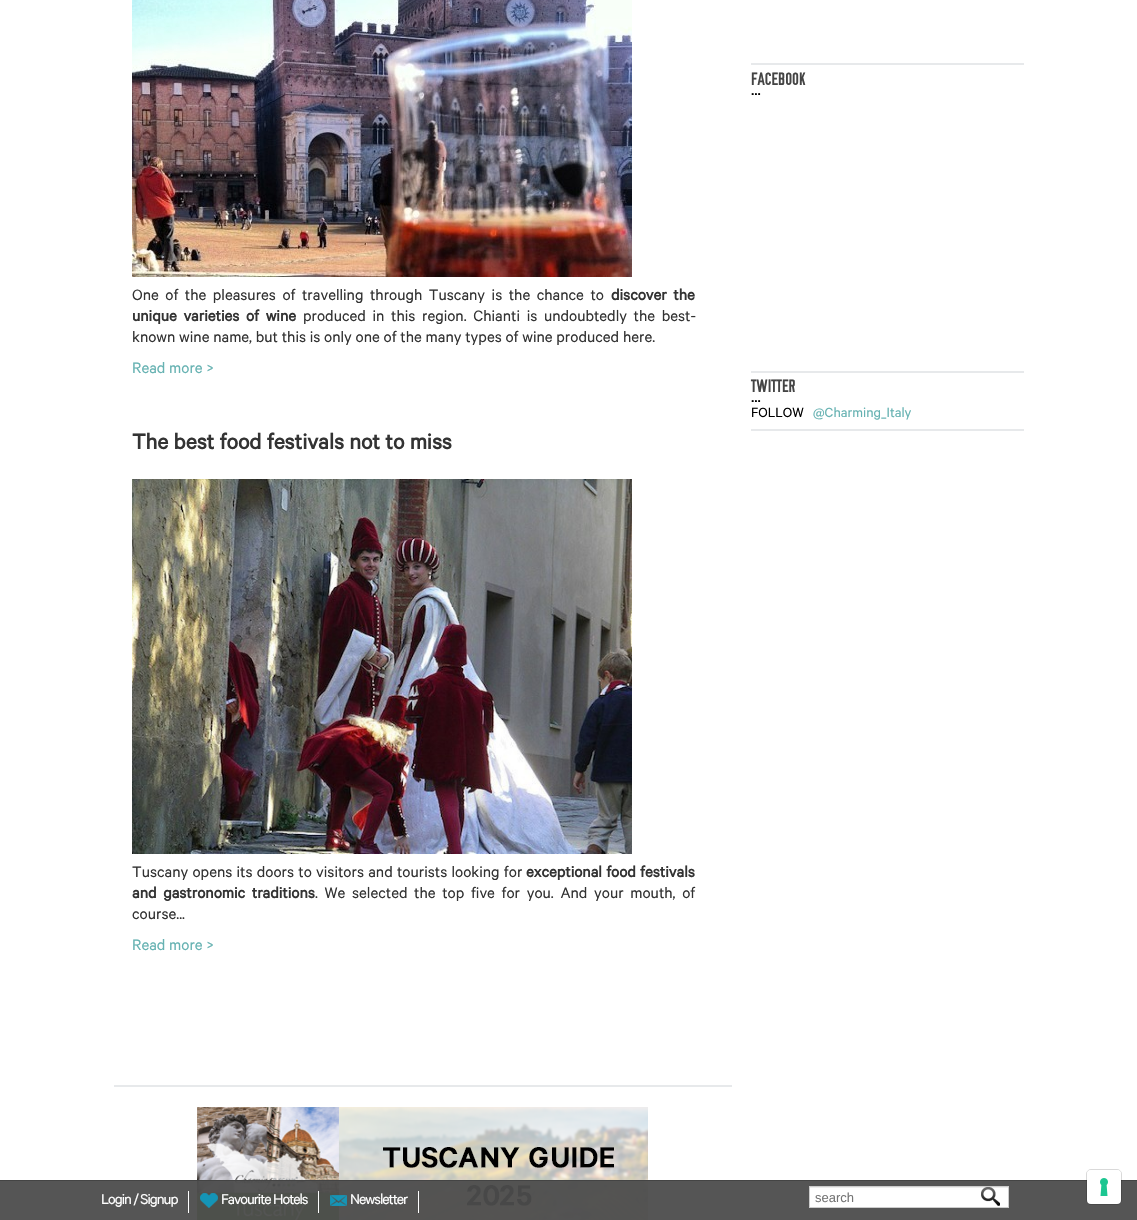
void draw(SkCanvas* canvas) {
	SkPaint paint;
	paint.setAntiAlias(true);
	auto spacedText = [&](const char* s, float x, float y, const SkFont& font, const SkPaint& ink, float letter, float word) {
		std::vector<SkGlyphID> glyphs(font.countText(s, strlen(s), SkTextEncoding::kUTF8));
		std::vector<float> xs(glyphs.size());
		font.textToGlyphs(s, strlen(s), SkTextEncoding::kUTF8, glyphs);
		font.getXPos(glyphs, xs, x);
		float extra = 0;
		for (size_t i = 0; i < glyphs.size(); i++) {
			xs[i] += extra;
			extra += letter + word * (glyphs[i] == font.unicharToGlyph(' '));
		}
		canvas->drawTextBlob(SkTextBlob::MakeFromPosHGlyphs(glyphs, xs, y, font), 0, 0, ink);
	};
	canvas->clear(0xffffffff);
	paint.setColor(0xffe7e9eb);
	canvas->drawRect(SkRect::MakeXYWH(751, 63, 273, 2), paint);
	canvas->drawRect(SkRect::MakeXYWH(751, 371, 273, 2), paint);
	SkFont f1(fontMgr->matchFamilyStyle("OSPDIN", SkFontStyle(500, SkFontStyle::kNormal_Width, SkFontStyle::kUpright_Slant)), 18);
	f1.setSubpixel(true);
	paint.setColor(0xff444444);
	canvas->drawString("FACEBOOK", 751, 85, f1, paint);
	paint.setColor(0xff000000);
	canvas->drawString("...", 751, 95, f1, paint);
	paint.setColor(0xffe7e9eb);
	canvas->drawRect(SkRect::MakeXYWH(751, 429, 273, 2), paint);
	paint.setColor(0xff444444);
	canvas->drawString("TWITTER", 751, 392, f1, paint);
	paint.setColor(0xff000000);
	canvas->drawString("...", 751, 402, f1, paint);
	SkFont f2(fontMgr->matchFamilyStyle("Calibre", SkFontStyle::Normal()), 15);
	f2.setSubpixel(true);
	canvas->drawString("FOLLOW", 751, 417, f2, paint);
	paint.setColor(0xff66b2b2);
	canvas->drawString("@Charming_Italy", 813, 417, f2, paint);
	paint.setColor(0xffe7e9eb);
	canvas->drawRect(SkRect::MakeXYWH(114, 1085, 618, 2), paint);
	canvas->drawImageRect(SkImages::DeferredFromEncodedData(SkData::MakeFromFileName("img1.png")), SkRect::MakeXYWH(132, 0, 500, 277), SkSamplingOptions());
	SkFont f3(fontMgr->matchFamilyStyle("Calibre", SkFontStyle::Normal()), 17);
	f3.setSubpixel(true);
	paint.setColor(0xff333333);
	spacedText("One of the pleasures of travelling through Tuscany is the chance to", 132, 300, f3, paint, 0, 2.75);
	SkFont f4(fontMgr->matchFamilyStyle("Calibre", SkFontStyle::Bold()), 17);
	f4.setSubpixel(true);
	spacedText("discover the", 611, 300, f4, paint, 0, 2.75);
	spacedText("unique varieties of wine", 132, 321, f4, paint, 0, 2.9);
	spacedText("produced in this region. Chianti is undoubtedly the best-", 303, 321, f3, paint, 0, 2.9);
	canvas->drawString("known wine name, but this is only one of the many types of wine produced here.", 132, 342, f3, paint);
	paint.setColor(0xff66b2b2);
	canvas->drawString("Read more >", 132, 373, f3, paint);
	SkFont f5(fontMgr->matchFamilyStyle("Calibre", SkFontStyle::Bold()), 24);
	f5.setSubpixel(true);
	paint.setColor(0xff333333);
	canvas->drawString("The best food festivals not to miss", 132, 449, f5, paint);
	canvas->drawImageRect(SkImages::DeferredFromEncodedData(SkData::MakeFromFileName("img2.png")), SkRect::MakeXYWH(132, 479, 500, 375), SkSamplingOptions());
	spacedText("Tuscany opens its doors to visitors and tourists looking for", 132, 877, f3, paint, 0, 0.5);
	spacedText("exceptional food festivals", 526, 877, f4, paint, 0, 0.5);
	spacedText("and gastronomic traditions", 132, 898, f4, paint, 0, 2.9);
	spacedText(". We selected the top five for you. And your mouth, of", 315, 898, f3, paint, 0, 2.9);
	canvas->drawString("course...", 132, 919, f3, paint);
	paint.setColor(0xff66b2b2);
	canvas->drawString("Read more >", 132, 950, f3, paint);
	canvas->drawImageRect(SkImages::DeferredFromEncodedData(SkData::MakeFromFileName("img3.png")), SkRect::MakeXYWH(197, 1107, 451, 113), SkSamplingOptions());
	paint.setColor(0xf24c4c4c);
	canvas->drawRect(SkRect::MakeXYWH(0, 1181, 1137, 39), paint);
	paint.setColor(0xff444444);
	canvas->drawRect(SkRect::MakeXYWH(0, 1180, 1137, 1), paint);
	paint.setColor(0xffffffff);
	canvas->drawRect(SkRect::MakeXYWH(188, 1191, 1, 22), paint);
	SkFont f6(fontMgr->matchFamilyStyle("Calibre", SkFontStyle::Normal()), 16);
	f6.setSubpixel(true);
	spacedText("Login / Signup", 101, 1204, f6, paint, -1, 0);
	canvas->drawRect(SkRect::MakeXYWH(318, 1191, 1, 22), paint);
	canvas->drawImageRect(SkImages::DeferredFromEncodedData(SkData::MakeFromFileName("img4.png")), SkRect::MakeXYWH(200, 1193, 18, 15), SkSamplingOptions());
	spacedText("Favourite Hotels", 221, 1204, f6, paint, -1, 0);
	canvas->drawRect(SkRect::MakeXYWH(418, 1191, 1, 22), paint);
	canvas->drawImageRect(SkImages::DeferredFromEncodedData(SkData::MakeFromFileName("img5.png")), SkRect::MakeXYWH(330, 1195, 17, 11), SkSamplingOptions());
	spacedText("Newsletter", 350, 1204, f6, paint, -1, 0);
	canvas->drawRect(SkRect::MakeXYWH(810, 1187, 198, 20), paint);
	canvas->drawImageRect(SkImages::DeferredFromEncodedData(SkData::MakeFromFileName("img6.png")), SkRect::MakeXYWH(981, 1187, 19, 19), SkSamplingOptions());
	paint.setColor(0x12000000);
	canvas->drawRect(SkRect::MakeXYWH(810, 1187, 198, 1), paint);
	paint.setStroke(true);
	paint.setStrokeWidth(1);
	paint.setColor(0xffcccccc);
	canvas->drawRect(SkRect::MakeXYWH(809.5, 1186.5, 199, 21), paint);
	SkFont f7(fontMgr->matchFamilyStyle("Liberation Sans", SkFontStyle::Normal()), 13);
	f7.setSubpixel(true);
	paint.setStroke(false);
	paint.setColor(0xff757575);
	canvas->drawString("search", 815, 1202, f7, paint);
	paint.setStroke(true);
	paint.setColor(0x26000000);
	canvas->drawRoundRect(SkRect::MakeXYWH(1086.5, 1169.5, 35, 35), 4.5, 4.5, paint);
	paint.setStroke(false);
	paint.setColor(0xffffffff);
	canvas->drawRoundRect(SkRect::MakeXYWH(1087, 1170, 34, 34), 4, 4, paint);
	canvas->drawImageRect(SkImages::DeferredFromEncodedData(SkData::MakeFromFileName("img7.png")), SkRect::MakeXYWH(1100, 1178, 8, 18), SkSamplingOptions());
}
